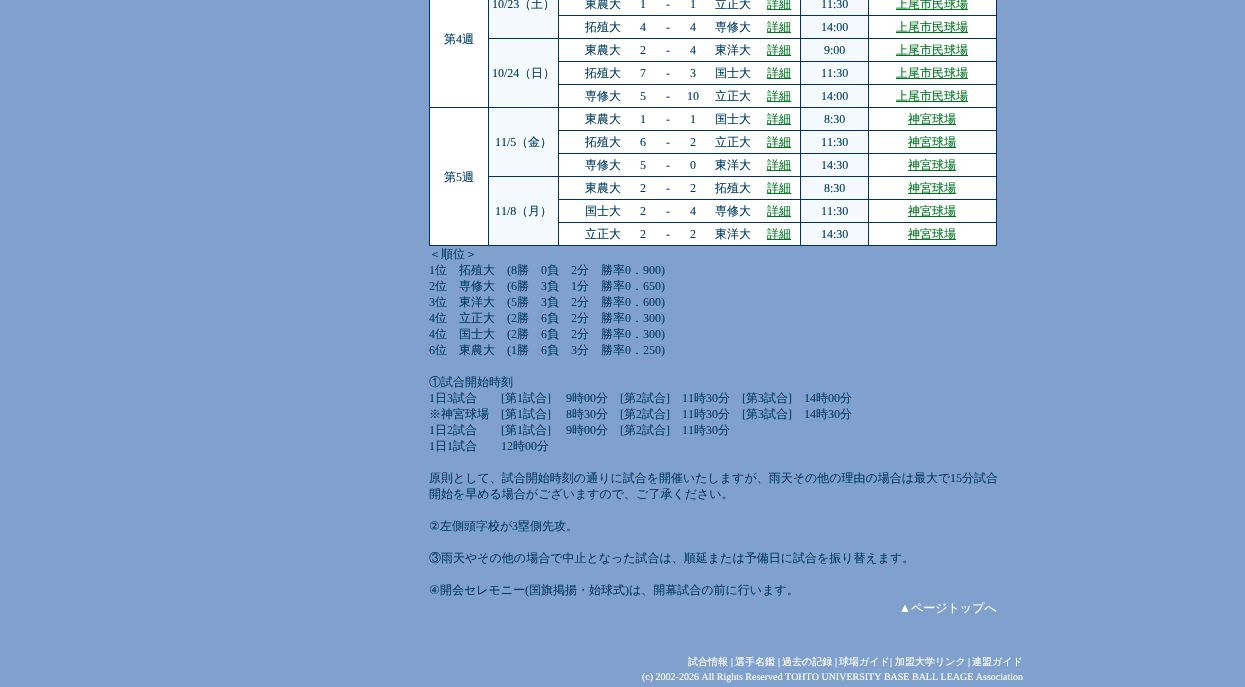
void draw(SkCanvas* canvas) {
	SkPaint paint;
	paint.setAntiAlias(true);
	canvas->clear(0xff80a1ce);
	paint.setColor(0xff003072);
	canvas->drawRect(SkRect::MakeXYWH(429, 0, 568, 246), paint);
	paint.setColor(0xfff4f9fd);
	canvas->drawRect(SkRect::MakeXYWH(489, 0, 69, 38), paint);
	SkFont f1(fontMgr->matchFamilyStyle("Liberation Serif", SkFontStyle::Normal()), 12);
	f1.setSubpixel(true);
	paint.setColor(0xff003c62);
	canvas->drawString("10/23", 492, 8, f1, paint);
	SkFont f2(fontMgr->matchFamilyStyle("WenQuanYi Zen Hei", SkFontStyle(500, SkFontStyle::kNormal_Width, SkFontStyle::kUpright_Slant)), 12);
	f2.setSubpixel(true);
	canvas->drawString("（土）", 519, 8, f2, paint);
	paint.setColor(0xffffffff);
	canvas->drawRect(SkRect::MakeXYWH(430, 0, 58, 107), paint);
	paint.setColor(0xff003c62);
	canvas->drawString("第", 444, 43, f2, paint);
	canvas->drawString("4", 456, 43, f1, paint);
	canvas->drawString("週", 462, 43, f2, paint);
	paint.setColor(0xffffffff);
	canvas->drawRect(SkRect::MakeXYWH(559, 0, 241, 15), paint);
	paint.setColor(0xff003c62);
	canvas->drawString("東農大", 585, 8, f2, paint);
	canvas->drawString("1", 640, 8, f1, paint);
	canvas->drawString("-", 666, 8, f1, paint);
	canvas->drawString("1", 690, 8, f1, paint);
	canvas->drawString("立正大", 715, 8, f2, paint);
	paint.setColor(0xff007722);
	canvas->drawRect(SkRect::MakeXYWH(767, 9, 24, 1), paint);
	canvas->drawString("詳細", 767, 8, f2, paint);
	paint.setColor(0xfff4f9fd);
	canvas->drawRect(SkRect::MakeXYWH(801, 0, 67, 15), paint);
	paint.setColor(0xff003c62);
	canvas->drawString("11:30", 821, 8, f1, paint);
	paint.setColor(0xffffffff);
	canvas->drawRect(SkRect::MakeXYWH(869, 0, 127, 15), paint);
	paint.setColor(0xff007722);
	canvas->drawRect(SkRect::MakeXYWH(896, 9, 72, 1), paint);
	canvas->drawString("上尾市民球場", 896, 8, f2, paint);
	paint.setColor(0xffffffff);
	canvas->drawRect(SkRect::MakeXYWH(559, 16, 241, 22), paint);
	paint.setColor(0xff003c62);
	canvas->drawString("拓殖大", 585, 31, f2, paint);
	canvas->drawString("4", 640, 31, f1, paint);
	canvas->drawString("-", 666, 31, f1, paint);
	canvas->drawString("4", 690, 31, f1, paint);
	canvas->drawString("専修大", 715, 31, f2, paint);
	paint.setColor(0xff007722);
	canvas->drawRect(SkRect::MakeXYWH(767, 32, 24, 1), paint);
	canvas->drawString("詳細", 767, 31, f2, paint);
	paint.setColor(0xfff4f9fd);
	canvas->drawRect(SkRect::MakeXYWH(801, 16, 67, 22), paint);
	paint.setColor(0xff003c62);
	canvas->drawString("14:00", 821, 31, f1, paint);
	paint.setColor(0xffffffff);
	canvas->drawRect(SkRect::MakeXYWH(869, 16, 127, 22), paint);
	paint.setColor(0xff007722);
	canvas->drawRect(SkRect::MakeXYWH(896, 32, 72, 1), paint);
	canvas->drawString("上尾市民球場", 896, 31, f2, paint);
	paint.setColor(0xffffffff);
	canvas->drawRect(SkRect::MakeXYWH(559, 39, 241, 22), paint);
	paint.setColor(0xff003c62);
	canvas->drawString("東農大", 585, 54, f2, paint);
	canvas->drawString("2", 640, 54, f1, paint);
	canvas->drawString("-", 666, 54, f1, paint);
	canvas->drawString("4", 690, 54, f1, paint);
	canvas->drawString("東洋大", 715, 54, f2, paint);
	paint.setColor(0xff007722);
	canvas->drawRect(SkRect::MakeXYWH(767, 55, 24, 1), paint);
	canvas->drawString("詳細", 767, 54, f2, paint);
	paint.setColor(0xfff4f9fd);
	canvas->drawRect(SkRect::MakeXYWH(801, 39, 67, 22), paint);
	paint.setColor(0xff003c62);
	canvas->drawString("9:00", 824, 54, f1, paint);
	paint.setColor(0xffffffff);
	canvas->drawRect(SkRect::MakeXYWH(869, 39, 127, 22), paint);
	paint.setColor(0xff007722);
	canvas->drawRect(SkRect::MakeXYWH(896, 55, 72, 1), paint);
	canvas->drawString("上尾市民球場", 896, 54, f2, paint);
	paint.setColor(0xfff4f9fd);
	canvas->drawRect(SkRect::MakeXYWH(489, 39, 69, 68), paint);
	paint.setColor(0xff003c62);
	canvas->drawString("10/24", 492, 77, f1, paint);
	canvas->drawString("（日）", 519, 77, f2, paint);
	paint.setColor(0xffffffff);
	canvas->drawRect(SkRect::MakeXYWH(559, 62, 241, 22), paint);
	paint.setColor(0xff003c62);
	canvas->drawString("拓殖大", 585, 77, f2, paint);
	canvas->drawString("7", 640, 77, f1, paint);
	canvas->drawString("-", 666, 77, f1, paint);
	canvas->drawString("3", 690, 77, f1, paint);
	canvas->drawString("国士大", 715, 77, f2, paint);
	paint.setColor(0xff007722);
	canvas->drawRect(SkRect::MakeXYWH(767, 78, 24, 1), paint);
	canvas->drawString("詳細", 767, 77, f2, paint);
	paint.setColor(0xfff4f9fd);
	canvas->drawRect(SkRect::MakeXYWH(801, 62, 67, 22), paint);
	paint.setColor(0xff003c62);
	canvas->drawString("11:30", 821, 77, f1, paint);
	paint.setColor(0xffffffff);
	canvas->drawRect(SkRect::MakeXYWH(869, 62, 127, 22), paint);
	paint.setColor(0xff007722);
	canvas->drawRect(SkRect::MakeXYWH(896, 78, 72, 1), paint);
	canvas->drawString("上尾市民球場", 896, 77, f2, paint);
	paint.setColor(0xffffffff);
	canvas->drawRect(SkRect::MakeXYWH(559, 85, 241, 22), paint);
	paint.setColor(0xff003c62);
	canvas->drawString("専修大", 585, 100, f2, paint);
	canvas->drawString("5", 640, 100, f1, paint);
	canvas->drawString("-", 666, 100, f1, paint);
	canvas->drawString("10", 687, 100, f1, paint);
	canvas->drawString("立正大", 715, 100, f2, paint);
	paint.setColor(0xff007722);
	canvas->drawRect(SkRect::MakeXYWH(767, 101, 24, 1), paint);
	canvas->drawString("詳細", 767, 100, f2, paint);
	paint.setColor(0xfff4f9fd);
	canvas->drawRect(SkRect::MakeXYWH(801, 85, 67, 22), paint);
	paint.setColor(0xff003c62);
	canvas->drawString("14:00", 821, 100, f1, paint);
	paint.setColor(0xffffffff);
	canvas->drawRect(SkRect::MakeXYWH(869, 85, 127, 22), paint);
	paint.setColor(0xff007722);
	canvas->drawRect(SkRect::MakeXYWH(896, 101, 72, 1), paint);
	canvas->drawString("上尾市民球場", 896, 100, f2, paint);
	paint.setColor(0xffffffff);
	canvas->drawRect(SkRect::MakeXYWH(559, 108, 241, 22), paint);
	paint.setColor(0xff003c62);
	canvas->drawString("東農大", 585, 123, f2, paint);
	canvas->drawString("1", 640, 123, f1, paint);
	canvas->drawString("-", 666, 123, f1, paint);
	canvas->drawString("1", 690, 123, f1, paint);
	canvas->drawString("国士大", 715, 123, f2, paint);
	paint.setColor(0xff007722);
	canvas->drawRect(SkRect::MakeXYWH(767, 124, 24, 1), paint);
	canvas->drawString("詳細", 767, 123, f2, paint);
	paint.setColor(0xfff4f9fd);
	canvas->drawRect(SkRect::MakeXYWH(801, 108, 67, 22), paint);
	paint.setColor(0xff003c62);
	canvas->drawString("8:30", 824, 123, f1, paint);
	paint.setColor(0xffffffff);
	canvas->drawRect(SkRect::MakeXYWH(869, 108, 127, 22), paint);
	paint.setColor(0xff007722);
	canvas->drawRect(SkRect::MakeXYWH(908, 124, 48, 1), paint);
	canvas->drawString("神宮球場", 908, 123, f2, paint);
	paint.setColor(0xfff4f9fd);
	canvas->drawRect(SkRect::MakeXYWH(489, 108, 69, 68), paint);
	paint.setColor(0xff003c62);
	canvas->drawString("11/5", 495, 146, f1, paint);
	canvas->drawString("（金）", 516, 146, f2, paint);
	paint.setColor(0xffffffff);
	canvas->drawRect(SkRect::MakeXYWH(430, 108, 58, 137), paint);
	paint.setColor(0xff003c62);
	canvas->drawString("第", 444, 181, f2, paint);
	canvas->drawString("5", 456, 181, f1, paint);
	canvas->drawString("週", 462, 181, f2, paint);
	paint.setColor(0xffffffff);
	canvas->drawRect(SkRect::MakeXYWH(559, 131, 241, 22), paint);
	paint.setColor(0xff003c62);
	canvas->drawString("拓殖大", 585, 146, f2, paint);
	canvas->drawString("6", 640, 146, f1, paint);
	canvas->drawString("-", 666, 146, f1, paint);
	canvas->drawString("2", 690, 146, f1, paint);
	canvas->drawString("立正大", 715, 146, f2, paint);
	paint.setColor(0xff007722);
	canvas->drawRect(SkRect::MakeXYWH(767, 147, 24, 1), paint);
	canvas->drawString("詳細", 767, 146, f2, paint);
	paint.setColor(0xfff4f9fd);
	canvas->drawRect(SkRect::MakeXYWH(801, 131, 67, 22), paint);
	paint.setColor(0xff003c62);
	canvas->drawString("11:30", 821, 146, f1, paint);
	paint.setColor(0xffffffff);
	canvas->drawRect(SkRect::MakeXYWH(869, 131, 127, 22), paint);
	paint.setColor(0xff007722);
	canvas->drawRect(SkRect::MakeXYWH(908, 147, 48, 1), paint);
	canvas->drawString("神宮球場", 908, 146, f2, paint);
	paint.setColor(0xffffffff);
	canvas->drawRect(SkRect::MakeXYWH(559, 154, 241, 22), paint);
	paint.setColor(0xff003c62);
	canvas->drawString("専修大", 585, 169, f2, paint);
	canvas->drawString("5", 640, 169, f1, paint);
	canvas->drawString("-", 666, 169, f1, paint);
	canvas->drawString("0", 690, 169, f1, paint);
	canvas->drawString("東洋大", 715, 169, f2, paint);
	paint.setColor(0xff007722);
	canvas->drawRect(SkRect::MakeXYWH(767, 170, 24, 1), paint);
	canvas->drawString("詳細", 767, 169, f2, paint);
	paint.setColor(0xfff4f9fd);
	canvas->drawRect(SkRect::MakeXYWH(801, 154, 67, 22), paint);
	paint.setColor(0xff003c62);
	canvas->drawString("14:30", 821, 169, f1, paint);
	paint.setColor(0xffffffff);
	canvas->drawRect(SkRect::MakeXYWH(869, 154, 127, 22), paint);
	paint.setColor(0xff007722);
	canvas->drawRect(SkRect::MakeXYWH(908, 170, 48, 1), paint);
	canvas->drawString("神宮球場", 908, 169, f2, paint);
	paint.setColor(0xffffffff);
	canvas->drawRect(SkRect::MakeXYWH(559, 177, 241, 22), paint);
	paint.setColor(0xff003c62);
	canvas->drawString("東農大", 585, 192, f2, paint);
	canvas->drawString("2", 640, 192, f1, paint);
	canvas->drawString("-", 666, 192, f1, paint);
	canvas->drawString("2", 690, 192, f1, paint);
	canvas->drawString("拓殖大", 715, 192, f2, paint);
	paint.setColor(0xff007722);
	canvas->drawRect(SkRect::MakeXYWH(767, 193, 24, 1), paint);
	canvas->drawString("詳細", 767, 192, f2, paint);
	paint.setColor(0xfff4f9fd);
	canvas->drawRect(SkRect::MakeXYWH(801, 177, 67, 22), paint);
	paint.setColor(0xff003c62);
	canvas->drawString("8:30", 824, 192, f1, paint);
	paint.setColor(0xffffffff);
	canvas->drawRect(SkRect::MakeXYWH(869, 177, 127, 22), paint);
	paint.setColor(0xff007722);
	canvas->drawRect(SkRect::MakeXYWH(908, 193, 48, 1), paint);
	canvas->drawString("神宮球場", 908, 192, f2, paint);
	paint.setColor(0xfff4f9fd);
	canvas->drawRect(SkRect::MakeXYWH(489, 177, 69, 68), paint);
	paint.setColor(0xff003c62);
	canvas->drawString("11/8", 495, 215, f1, paint);
	canvas->drawString("（月）", 516, 215, f2, paint);
	paint.setColor(0xffffffff);
	canvas->drawRect(SkRect::MakeXYWH(559, 200, 241, 22), paint);
	paint.setColor(0xff003c62);
	canvas->drawString("国士大", 585, 215, f2, paint);
	canvas->drawString("2", 640, 215, f1, paint);
	canvas->drawString("-", 666, 215, f1, paint);
	canvas->drawString("4", 690, 215, f1, paint);
	canvas->drawString("専修大", 715, 215, f2, paint);
	paint.setColor(0xff007722);
	canvas->drawRect(SkRect::MakeXYWH(767, 216, 24, 1), paint);
	canvas->drawString("詳細", 767, 215, f2, paint);
	paint.setColor(0xfff4f9fd);
	canvas->drawRect(SkRect::MakeXYWH(801, 200, 67, 22), paint);
	paint.setColor(0xff003c62);
	canvas->drawString("11:30", 821, 215, f1, paint);
	paint.setColor(0xffffffff);
	canvas->drawRect(SkRect::MakeXYWH(869, 200, 127, 22), paint);
	paint.setColor(0xff007722);
	canvas->drawRect(SkRect::MakeXYWH(908, 216, 48, 1), paint);
	canvas->drawString("神宮球場", 908, 215, f2, paint);
	paint.setColor(0xffffffff);
	canvas->drawRect(SkRect::MakeXYWH(559, 223, 241, 22), paint);
	paint.setColor(0xff003c62);
	canvas->drawString("立正大", 585, 238, f2, paint);
	canvas->drawString("2", 640, 238, f1, paint);
	canvas->drawString("-", 666, 238, f1, paint);
	canvas->drawString("2", 690, 238, f1, paint);
	canvas->drawString("東洋大", 715, 238, f2, paint);
	paint.setColor(0xff007722);
	canvas->drawRect(SkRect::MakeXYWH(767, 239, 24, 1), paint);
	canvas->drawString("詳細", 767, 238, f2, paint);
	paint.setColor(0xfff4f9fd);
	canvas->drawRect(SkRect::MakeXYWH(801, 223, 67, 22), paint);
	paint.setColor(0xff003c62);
	canvas->drawString("14:30", 821, 238, f1, paint);
	paint.setColor(0xffffffff);
	canvas->drawRect(SkRect::MakeXYWH(869, 223, 127, 22), paint);
	paint.setColor(0xff007722);
	canvas->drawRect(SkRect::MakeXYWH(908, 239, 48, 1), paint);
	canvas->drawString("神宮球場", 908, 238, f2, paint);
	paint.setColor(0xff003c62);
	canvas->drawString("＜順位＞", 429, 258, f2, paint);
	canvas->drawString("1", 429, 274, f1, paint);
	canvas->drawString("位　拓殖大", 435, 274, f2, paint);
	canvas->drawString("(8", 507, 274, f1, paint);
	canvas->drawString("勝", 517, 274, f2, paint);
	canvas->drawString("0", 541, 274, f1, paint);
	canvas->drawString("負", 547, 274, f2, paint);
	canvas->drawString("2", 571, 274, f1, paint);
	canvas->drawString("分　勝率", 577, 274, f2, paint);
	canvas->drawString("0", 625, 274, f1, paint);
	canvas->drawString("．", 631, 274, f2, paint);
	canvas->drawString("900)", 643, 274, f1, paint);
	canvas->drawString("2", 429, 290, f1, paint);
	canvas->drawString("位　専修大", 435, 290, f2, paint);
	canvas->drawString("(6", 507, 290, f1, paint);
	canvas->drawString("勝", 517, 290, f2, paint);
	canvas->drawString("3", 541, 290, f1, paint);
	canvas->drawString("負", 547, 290, f2, paint);
	canvas->drawString("1", 571, 290, f1, paint);
	canvas->drawString("分　勝率", 577, 290, f2, paint);
	canvas->drawString("0", 625, 290, f1, paint);
	canvas->drawString("．", 631, 290, f2, paint);
	canvas->drawString("650)", 643, 290, f1, paint);
	canvas->drawString("3", 429, 306, f1, paint);
	canvas->drawString("位　東洋大", 435, 306, f2, paint);
	canvas->drawString("(5", 507, 306, f1, paint);
	canvas->drawString("勝", 517, 306, f2, paint);
	canvas->drawString("3", 541, 306, f1, paint);
	canvas->drawString("負", 547, 306, f2, paint);
	canvas->drawString("2", 571, 306, f1, paint);
	canvas->drawString("分　勝率", 577, 306, f2, paint);
	canvas->drawString("0", 625, 306, f1, paint);
	canvas->drawString("．", 631, 306, f2, paint);
	canvas->drawString("600)", 643, 306, f1, paint);
	canvas->drawString("4", 429, 322, f1, paint);
	canvas->drawString("位　立正大", 435, 322, f2, paint);
	canvas->drawString("(2", 507, 322, f1, paint);
	canvas->drawString("勝", 517, 322, f2, paint);
	canvas->drawString("6", 541, 322, f1, paint);
	canvas->drawString("負", 547, 322, f2, paint);
	canvas->drawString("2", 571, 322, f1, paint);
	canvas->drawString("分　勝率", 577, 322, f2, paint);
	canvas->drawString("0", 625, 322, f1, paint);
	canvas->drawString("．", 631, 322, f2, paint);
	canvas->drawString("300)", 643, 322, f1, paint);
	canvas->drawString("4", 429, 338, f1, paint);
	canvas->drawString("位　国士大", 435, 338, f2, paint);
	canvas->drawString("(2", 507, 338, f1, paint);
	canvas->drawString("勝", 517, 338, f2, paint);
	canvas->drawString("6", 541, 338, f1, paint);
	canvas->drawString("負", 547, 338, f2, paint);
	canvas->drawString("2", 571, 338, f1, paint);
	canvas->drawString("分　勝率", 577, 338, f2, paint);
	canvas->drawString("0", 625, 338, f1, paint);
	canvas->drawString("．", 631, 338, f2, paint);
	canvas->drawString("300)", 643, 338, f1, paint);
	canvas->drawString("6", 429, 354, f1, paint);
	canvas->drawString("位　東農大", 435, 354, f2, paint);
	canvas->drawString("(1", 507, 354, f1, paint);
	canvas->drawString("勝", 517, 354, f2, paint);
	canvas->drawString("6", 541, 354, f1, paint);
	canvas->drawString("負", 547, 354, f2, paint);
	canvas->drawString("3", 571, 354, f1, paint);
	canvas->drawString("分　勝率", 577, 354, f2, paint);
	canvas->drawString("0", 625, 354, f1, paint);
	canvas->drawString("．", 631, 354, f2, paint);
	canvas->drawString("250)", 643, 354, f1, paint);
	canvas->drawString("①試合開始時刻", 429, 386, f2, paint);
	canvas->drawString("1", 429, 402, f1, paint);
	canvas->drawString("日", 435, 402, f2, paint);
	canvas->drawString("3", 447, 402, f1, paint);
	canvas->drawString("試合", 453, 402, f2, paint);
	canvas->drawString("[", 501, 402, f1, paint);
	canvas->drawString("第", 505, 402, f2, paint);
	canvas->drawString("1", 517, 402, f1, paint);
	canvas->drawString("試合", 523, 402, f2, paint);
	canvas->drawString("]", 547, 402, f1, paint);
	canvas->drawString("9", 566, 402, f1, paint);
	canvas->drawString("時", 572, 402, f2, paint);
	canvas->drawString("00", 584, 402, f1, paint);
	canvas->drawString("分", 596, 402, f2, paint);
	canvas->drawString("[", 620, 402, f1, paint);
	canvas->drawString("第", 624, 402, f2, paint);
	canvas->drawString("2", 636, 402, f1, paint);
	canvas->drawString("試合", 642, 402, f2, paint);
	canvas->drawString("]", 666, 402, f1, paint);
	canvas->drawString("11", 682, 402, f1, paint);
	canvas->drawString("時", 694, 402, f2, paint);
	canvas->drawString("30", 706, 402, f1, paint);
	canvas->drawString("分", 718, 402, f2, paint);
	canvas->drawString("[", 742, 402, f1, paint);
	canvas->drawString("第", 746, 402, f2, paint);
	canvas->drawString("3", 758, 402, f1, paint);
	canvas->drawString("試合", 764, 402, f2, paint);
	canvas->drawString("]", 788, 402, f1, paint);
	canvas->drawString("14", 804, 402, f1, paint);
	canvas->drawString("時", 816, 402, f2, paint);
	canvas->drawString("00", 828, 402, f1, paint);
	canvas->drawString("分", 840, 402, f2, paint);
	canvas->drawString("※神宮球場", 429, 418, f2, paint);
	canvas->drawString("[", 501, 418, f1, paint);
	canvas->drawString("第", 505, 418, f2, paint);
	canvas->drawString("1", 517, 418, f1, paint);
	canvas->drawString("試合", 523, 418, f2, paint);
	canvas->drawString("]", 547, 418, f1, paint);
	canvas->drawString("8", 566, 418, f1, paint);
	canvas->drawString("時", 572, 418, f2, paint);
	canvas->drawString("30", 584, 418, f1, paint);
	canvas->drawString("分", 596, 418, f2, paint);
	canvas->drawString("[", 620, 418, f1, paint);
	canvas->drawString("第", 624, 418, f2, paint);
	canvas->drawString("2", 636, 418, f1, paint);
	canvas->drawString("試合", 642, 418, f2, paint);
	canvas->drawString("]", 666, 418, f1, paint);
	canvas->drawString("11", 682, 418, f1, paint);
	canvas->drawString("時", 694, 418, f2, paint);
	canvas->drawString("30", 706, 418, f1, paint);
	canvas->drawString("分", 718, 418, f2, paint);
	canvas->drawString("[", 742, 418, f1, paint);
	canvas->drawString("第", 746, 418, f2, paint);
	canvas->drawString("3", 758, 418, f1, paint);
	canvas->drawString("試合", 764, 418, f2, paint);
	canvas->drawString("]", 788, 418, f1, paint);
	canvas->drawString("14", 804, 418, f1, paint);
	canvas->drawString("時", 816, 418, f2, paint);
	canvas->drawString("30", 828, 418, f1, paint);
	canvas->drawString("分", 840, 418, f2, paint);
	canvas->drawString("1", 429, 434, f1, paint);
	canvas->drawString("日", 435, 434, f2, paint);
	canvas->drawString("2", 447, 434, f1, paint);
	canvas->drawString("試合", 453, 434, f2, paint);
	canvas->drawString("[", 501, 434, f1, paint);
	canvas->drawString("第", 505, 434, f2, paint);
	canvas->drawString("1", 517, 434, f1, paint);
	canvas->drawString("試合", 523, 434, f2, paint);
	canvas->drawString("]", 547, 434, f1, paint);
	canvas->drawString("9", 566, 434, f1, paint);
	canvas->drawString("時", 572, 434, f2, paint);
	canvas->drawString("00", 584, 434, f1, paint);
	canvas->drawString("分", 596, 434, f2, paint);
	canvas->drawString("[", 620, 434, f1, paint);
	canvas->drawString("第", 624, 434, f2, paint);
	canvas->drawString("2", 636, 434, f1, paint);
	canvas->drawString("試合", 642, 434, f2, paint);
	canvas->drawString("]", 666, 434, f1, paint);
	canvas->drawString("11", 682, 434, f1, paint);
	canvas->drawString("時", 694, 434, f2, paint);
	canvas->drawString("30", 706, 434, f1, paint);
	canvas->drawString("分", 718, 434, f2, paint);
	canvas->drawString("1", 429, 450, f1, paint);
	canvas->drawString("日", 435, 450, f2, paint);
	canvas->drawString("1", 447, 450, f1, paint);
	canvas->drawString("試合", 453, 450, f2, paint);
	canvas->drawString("12", 501, 450, f1, paint);
	canvas->drawString("時", 513, 450, f2, paint);
	canvas->drawString("00", 525, 450, f1, paint);
	canvas->drawString("分", 537, 450, f2, paint);
	canvas->drawString("原則として、試合開始時刻の通りに試合を開催いたしますが、雨天その他の理由の場合は最大で", 429, 482, f2, paint);
	canvas->drawString("15", 950, 482, f1, paint);
	canvas->drawString("分試合", 962, 482, f2, paint);
	canvas->drawString("開始を早める場合がございますので、ご了承ください。", 429, 498, f2, paint);
	SkFont f3(fontMgr->matchFamilyStyle("DejaVu Sans", SkFontStyle::Normal()), 12);
	f3.setSubpixel(true);
	canvas->drawString("②", 429, 530, f3, paint);
	canvas->drawString("左側頭字校が", 440, 530, f2, paint);
	canvas->drawString("3", 512, 530, f1, paint);
	canvas->drawString("塁側先攻。", 518, 530, f2, paint);
	canvas->drawString("③雨天やその他の場合で中止となった試合は、順延または予備日に試合を振り替えます。", 429, 562, f2, paint);
	canvas->drawString("④", 429, 594, f3, paint);
	canvas->drawString("開会セレモニー", 440, 594, f2, paint);
	canvas->drawString("(", 525, 594, f1, paint);
	canvas->drawString("国旗掲揚・始球式", 529, 594, f2, paint);
	canvas->drawString(")", 625, 594, f1, paint);
	canvas->drawString("は、開幕試合の前に行います。", 629, 594, f2, paint);
	paint.setColor(0xffffffff);
	canvas->drawString("▲", 899, 612, f1, paint);
	canvas->drawString("ページトップへ", 911, 612, f2, paint);
	SkFont f4(fontMgr->matchFamilyStyle("WenQuanYi Zen Hei", SkFontStyle(500, SkFontStyle::kNormal_Width, SkFontStyle::kUpright_Slant)), 10);
	f4.setSubpixel(true);
	canvas->drawString("試合情報", 688, 665, f4, paint);
	SkFont f5(fontMgr->matchFamilyStyle("Liberation Serif", SkFontStyle::Normal()), 10);
	f5.setSubpixel(true);
	canvas->drawString("|", 731, 665, f5, paint);
	canvas->drawString("選手名鑑", 735, 665, f4, paint);
	canvas->drawString("|", 778, 665, f5, paint);
	canvas->drawString("過去の記録", 782, 665, f4, paint);
	canvas->drawString("|", 835, 665, f5, paint);
	canvas->drawString("球場ガイド", 839, 665, f4, paint);
	canvas->drawString("|", 890, 665, f5, paint);
	canvas->drawString("加盟大学リンク", 895, 665, f4, paint);
	canvas->drawString("|", 968, 665, f5, paint);
	canvas->drawString("連盟ガイド", 972, 665, f4, paint);
	canvas->drawString("(c) 2002-2026 All Rights Reserved TOHTO UNIVERSITY BASE BALL LEAGE Association", 642, 680, f5, paint);
}
